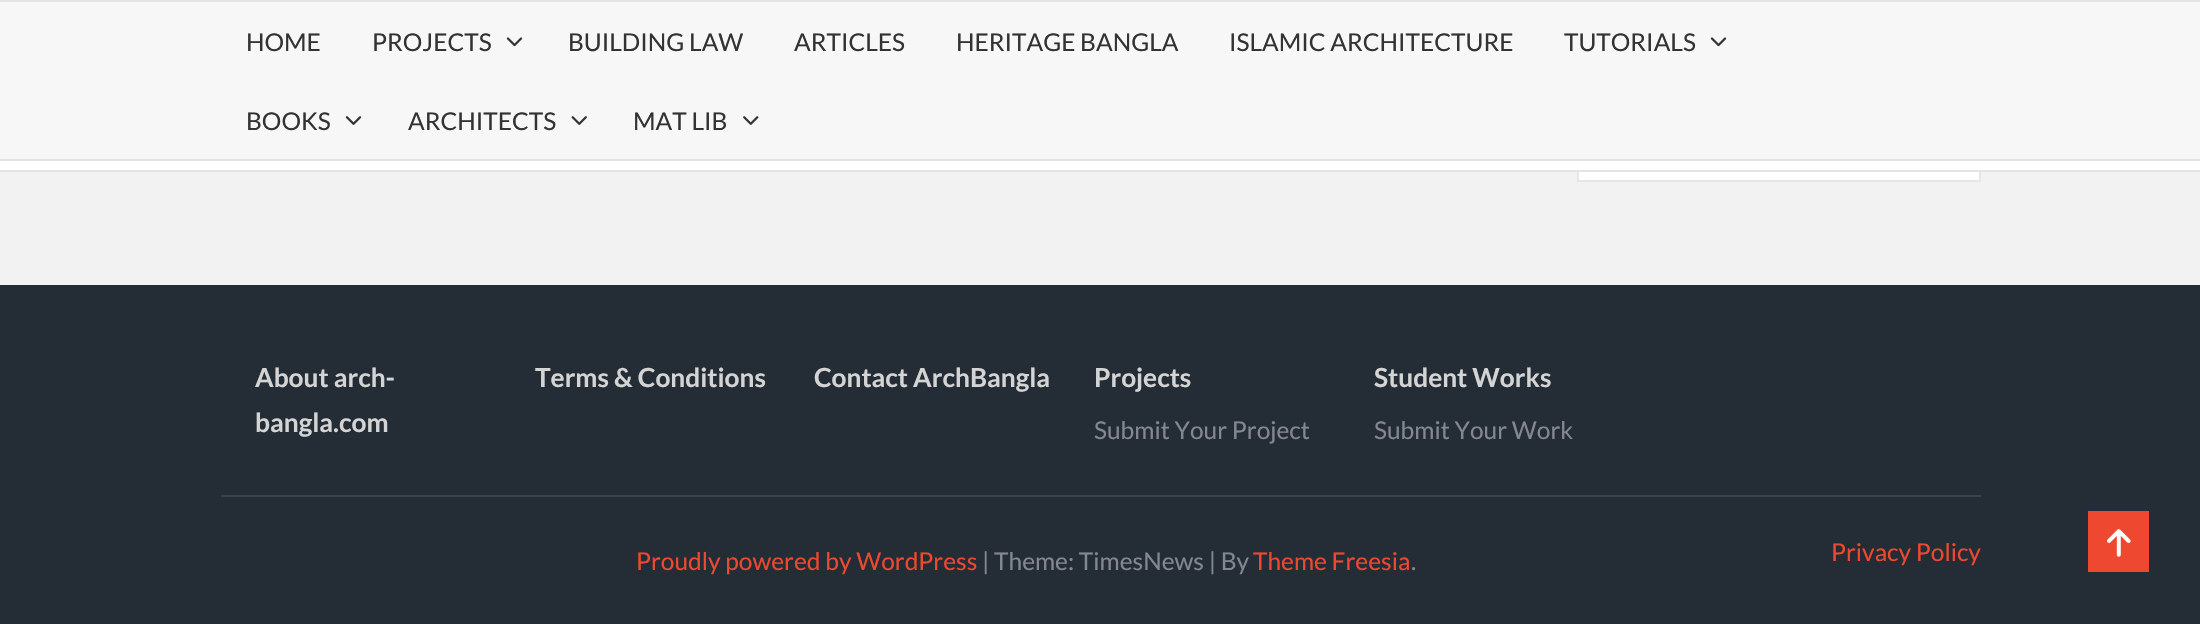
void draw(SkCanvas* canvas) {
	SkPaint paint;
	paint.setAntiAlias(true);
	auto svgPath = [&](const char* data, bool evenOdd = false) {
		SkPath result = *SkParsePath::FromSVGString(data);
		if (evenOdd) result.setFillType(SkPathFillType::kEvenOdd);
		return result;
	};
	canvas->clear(0xfff2f2f2);
	paint.setColor(0xffffffff);
	canvas->drawRect(SkRect::MakeXYWH(1579, 172, 400, 8), paint);
	paint.setStroke(true);
	paint.setStrokeWidth(2);
	paint.setColor(0xffe6e6e6);
	canvas->drawRect(SkRect::MakeXYWH(1578, -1, 402, 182), paint);
	paint.setStroke(false);
	paint.setColor(0xffe4e4e4);
	canvas->drawPath(svgPath("M0 170V172H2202V2V170Z"), paint);
	paint.setColor(0xfff7f7f7);
	canvas->drawRect(SkRect::MakeXYWH(0, 2, 2200, 157), paint);
	paint.setColor(0xffffffff);
	canvas->drawRect(SkRect::MakeXYWH(0, 161, 2200, 9), paint);
	paint.setColor(0xffe4e4e4);
	canvas->drawRect(SkRect::MakeXYWH(0, 0, 2200, 2), paint);
	canvas->drawRect(SkRect::MakeXYWH(0, 159, 2200, 2), paint);
	SkFont f1(fontMgr->matchFamilyStyle("Lato", SkFontStyle::Normal()), 24.5);
	f1.setSubpixel(true);
	paint.setColor(0xff333333);
	canvas->drawString("HOME", 246, 51, f1, paint);
	canvas->drawString("PROJECTS", 372, 51, f1, paint);
	canvas->drawImageRect(SkImages::DeferredFromEncodedData(SkData::MakeFromFileName("img1.png")), SkRect::MakeXYWH(506, 37, 17, 10), SkSamplingOptions());
	canvas->drawString("BUILDING LAW", 568, 51, f1, paint);
	canvas->drawString("ARTICLES", 794, 51, f1, paint);
	canvas->drawString("HERITAGE BANGLA", 956, 51, f1, paint);
	canvas->drawString("ISLAMIC ARCHITECTURE", 1229, 51, f1, paint);
	canvas->drawString("TUTORIALS", 1564, 51, f1, paint);
	canvas->drawImageRect(SkImages::DeferredFromEncodedData(SkData::MakeFromFileName("img1.png")), SkRect::MakeXYWH(1710, 37, 17, 10), SkSamplingOptions());
	canvas->drawString("BOOKS", 246, 130, f1, paint);
	canvas->drawImageRect(SkImages::DeferredFromEncodedData(SkData::MakeFromFileName("img2.png")), SkRect::MakeXYWH(345, 116, 17, 9), SkSamplingOptions());
	canvas->drawString("ARCHITECTS", 408, 130, f1, paint);
	canvas->drawImageRect(SkImages::DeferredFromEncodedData(SkData::MakeFromFileName("img3.png")), SkRect::MakeXYWH(571, 116, 16, 9), SkSamplingOptions());
	canvas->drawString("MAT LIB", 633, 130, f1, paint);
	canvas->drawImageRect(SkImages::DeferredFromEncodedData(SkData::MakeFromFileName("img4.png")), SkRect::MakeXYWH(743, 116, 16, 9), SkSamplingOptions());
	paint.setColor(0xff242c35);
	canvas->drawRect(SkRect::MakeXYWH(0, 285, 2200, 339), paint);
	paint.setColor(0xff3a4149);
	canvas->drawRect(SkRect::MakeXYWH(221, 495, 1760, 2), paint);
	SkFont f2(fontMgr->matchFamilyStyle("Lato", SkFontStyle::Bold()), 26.25);
	f2.setSubpixel(true);
	paint.setColor(0xffd4d4d4);
	canvas->drawString("About arch-", 255, 387, f2, paint);
	canvas->drawString("bangla.com", 255, 432, f2, paint);
	canvas->drawString("Terms & Conditions", 535, 387, f2, paint);
	canvas->drawString("Contact ArchBangla", 814, 387, f2, paint);
	canvas->drawString("Projects", 1094, 387, f2, paint);
	paint.setColor(0xff848790);
	canvas->drawString("Submit Your Project", 1094, 439, f1, paint);
	paint.setColor(0xffd4d4d4);
	canvas->drawString("Student Works", 1374, 387, f2, paint);
	paint.setColor(0xff848790);
	canvas->drawString("Submit Your Work", 1374, 439, f1, paint);
	paint.setColor(0xffee4930);
	canvas->drawString("Proudly powered by WordPress", 636, 570, f1, paint);
	paint.setColor(0xff848790);
	canvas->drawString("| Theme: TimesNews | By", 982, 570, f1, paint);
	paint.setColor(0xffee4930);
	canvas->drawString("Theme Freesia", 1253, 570, f1, paint);
	paint.setColor(0xff848790);
	canvas->drawString(".", 1411, 570, f1, paint);
	paint.setColor(0xffee4930);
	canvas->drawString("Privacy Policy", 1831, 561, f1, paint);
	canvas->drawRect(SkRect::MakeXYWH(2088, 511, 61, 61), paint);
	canvas->drawImageRect(SkImages::DeferredFromEncodedData(SkData::MakeFromFileName("img5.png")), SkRect::MakeXYWH(2107, 529, 24, 28), SkSamplingOptions());
}
